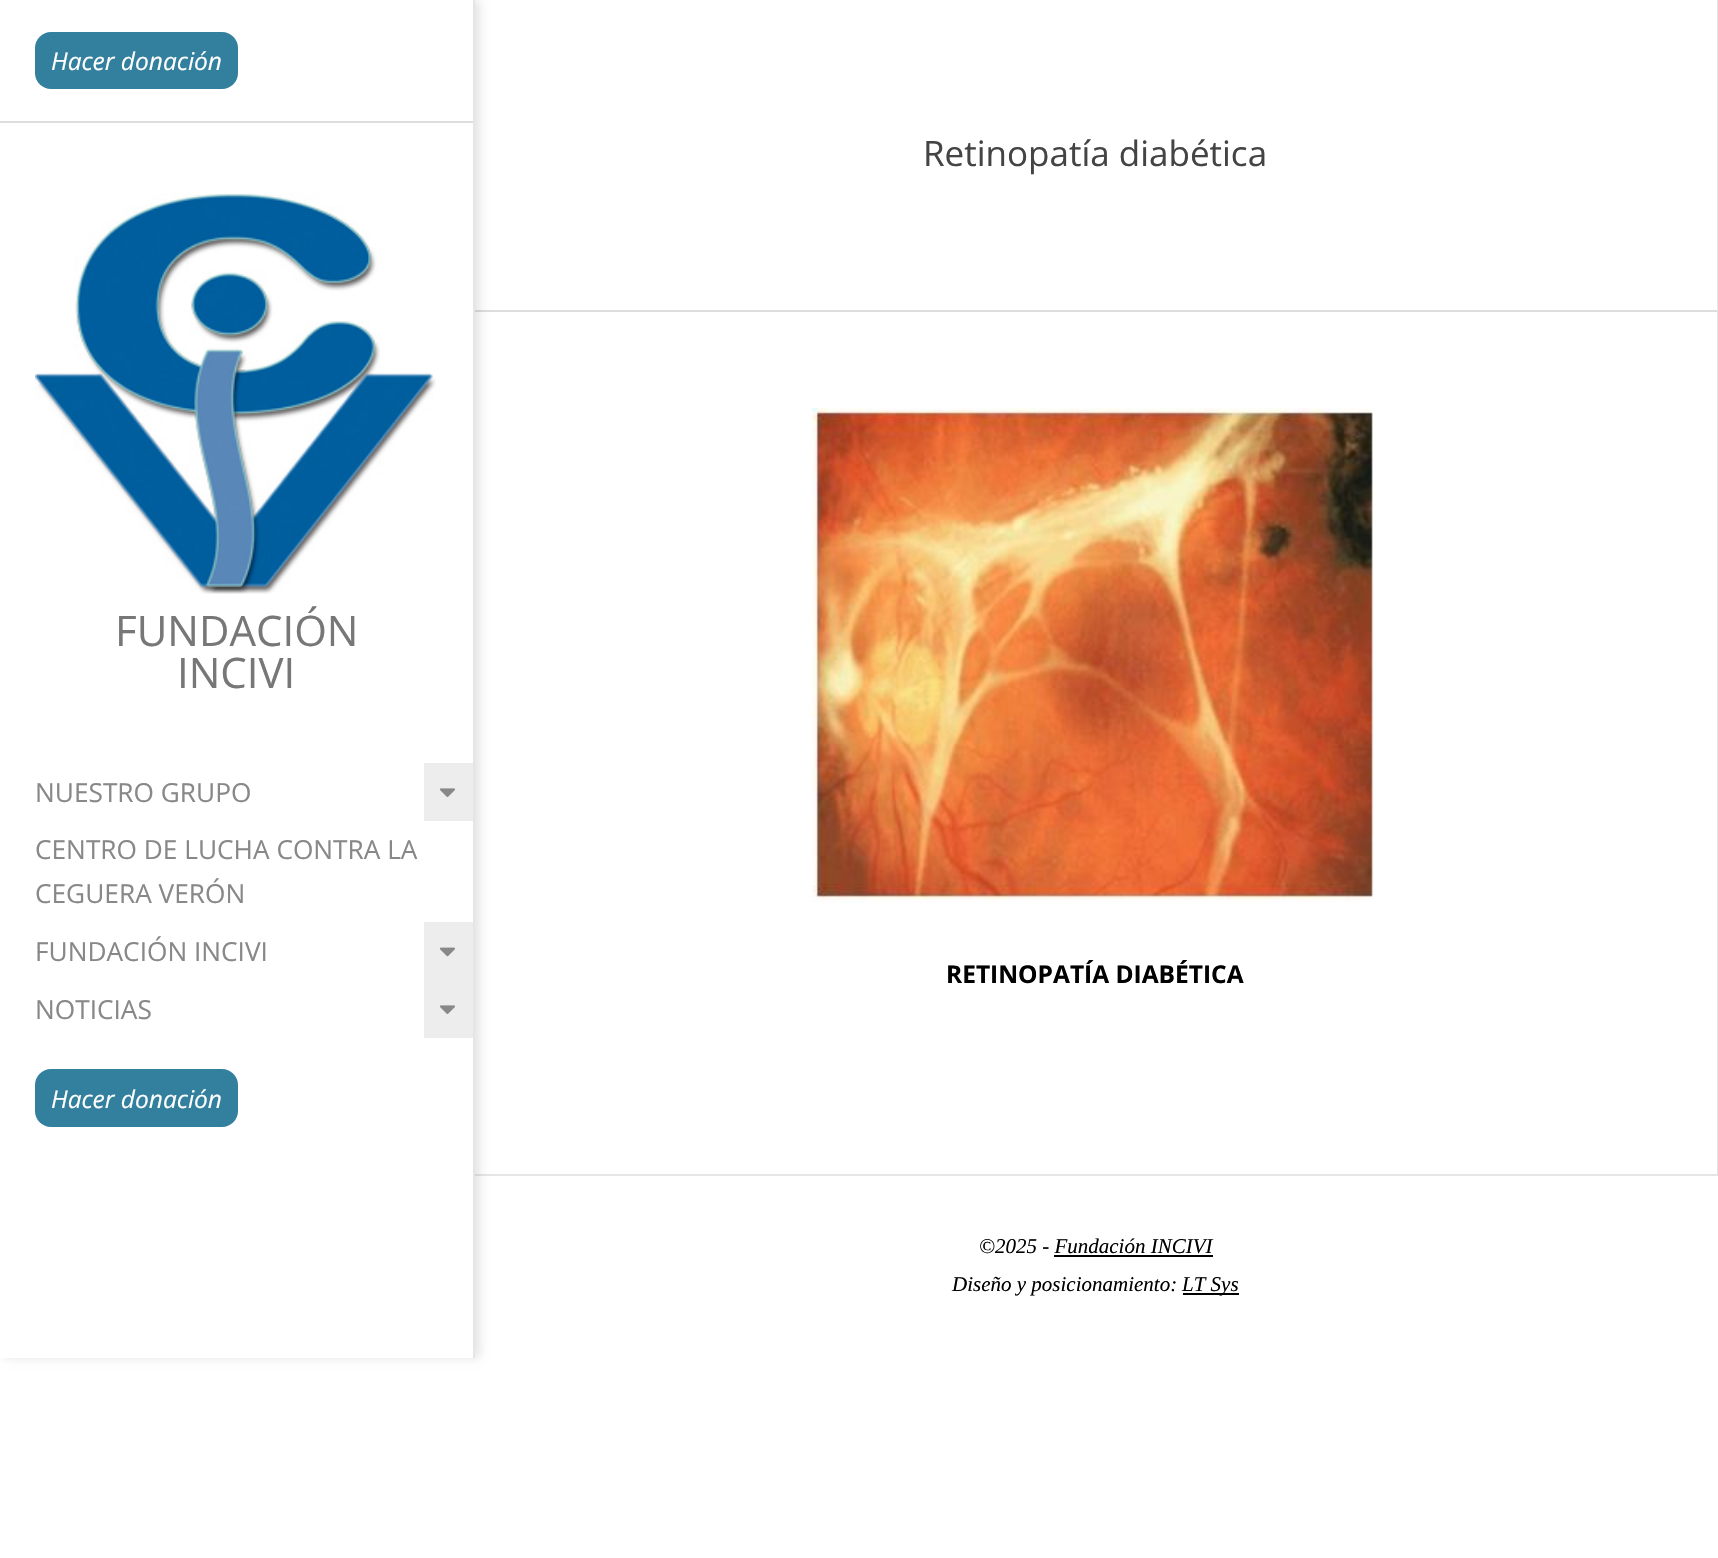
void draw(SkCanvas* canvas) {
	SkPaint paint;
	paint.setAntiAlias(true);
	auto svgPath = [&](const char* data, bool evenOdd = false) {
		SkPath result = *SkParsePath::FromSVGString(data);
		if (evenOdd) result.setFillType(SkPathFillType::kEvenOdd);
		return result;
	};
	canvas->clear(0xffffffff);
	paint.setColor(0xffdddddd);
	canvas->drawRect(SkRect::MakeXYWH(473, 310, 1244, 2), paint);
	paint.setColor(0xffe6e6e6);
	canvas->drawRect(SkRect::MakeXYWH(473, 1174, 1245, 2), paint);
	canvas->save();
	canvas->clipPath(svgPath("M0 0H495V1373H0ZM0 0H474V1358H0Z", true), true);
	paint.setColor(0x1a000000);
	paint.setMaskFilter(SkMaskFilter::MakeBlur(kNormal_SkBlurStyle, 4.5));
	canvas->drawRect(SkRect::MakeXYWH(5, 0, 475, 1358), paint);
	paint.setMaskFilter(nullptr);
	canvas->restore();
	paint.setColor(0xffe5e5e5);
	canvas->drawRect(SkRect::MakeXYWH(473, 0, 2, 1358), paint);
	paint.setColor(0xffdddddd);
	canvas->drawRect(SkRect::MakeXYWH(0, 121, 473, 2), paint);
	paint.setColor(0xff33809e);
	canvas->drawRoundRect(SkRect::MakeXYWH(35, 32, 203, 57), 16, 16, paint);
	SkFont f1(fontMgr->matchFamilyStyle("Open Sans", SkFontStyle::Italic()), 24.5);
	f1.setSubpixel(true);
	paint.setColor(0xffffffff);
	canvas->drawString("Hacer donación", 51, 70, f1, paint);
	canvas->drawImageRect(SkImages::DeferredFromEncodedData(SkData::MakeFromFileName("img1.png")), SkRect::MakeXYWH(35, 193, 401, 401), SkSamplingOptions());
	SkFont f2(fontMgr->matchFamilyStyle("Open Sans", SkFontStyle::Normal()), 42);
	f2.setSubpixel(true);
	paint.setColor(0xff777777);
	canvas->drawString("FUNDACIÓN", 115, 646, f2, paint);
	canvas->drawString("INCIVI", 177, 688, f2, paint);
	SkFont f3(fontMgr->matchFamilyStyle("Open Sans", SkFontStyle::Normal()), 26.25);
	f3.setSubpixel(true);
	paint.setColor(0xff888888);
	canvas->drawString("NUESTRO GRUPO", 35, 802, f3, paint);
	paint.setColor(0xffededed);
	canvas->drawRect(SkRect::MakeXYWH(424, 763, 49, 58), paint);
	canvas->drawImageRect(SkImages::DeferredFromEncodedData(SkData::MakeFromFileName("img2.png")), SkRect::MakeXYWH(439, 788, 16, 9), SkSamplingOptions());
	paint.setColor(0xff888888);
	canvas->drawString("CENTRO DE LUCHA CONTRA LA", 35, 859, f3, paint);
	canvas->drawString("CEGUERA VERÓN", 35, 903, f3, paint);
	canvas->drawString("FUNDACIÓN INCIVI", 35, 961, f3, paint);
	paint.setColor(0xffededed);
	canvas->drawRect(SkRect::MakeXYWH(424, 922, 49, 116), paint);
	canvas->drawImageRect(SkImages::DeferredFromEncodedData(SkData::MakeFromFileName("img3.png")), SkRect::MakeXYWH(439, 947, 16, 10), SkSamplingOptions());
	paint.setColor(0xff888888);
	canvas->drawString("NOTICIAS", 35, 1019, f3, paint);
	canvas->drawImageRect(SkImages::DeferredFromEncodedData(SkData::MakeFromFileName("img2.png")), SkRect::MakeXYWH(439, 1005, 16, 9), SkSamplingOptions());
	paint.setColor(0xff33809e);
	canvas->drawRoundRect(SkRect::MakeXYWH(35, 1069, 203, 58), 16, 16, paint);
	paint.setColor(0xffffffff);
	canvas->drawString("Hacer donación", 51, 1108, f1, paint);
	paint.setColor(0xffe5e5e5);
	canvas->drawRect(SkRect::MakeXYWH(1717, 0, 1, 1174), paint);
	SkFont f4(fontMgr->matchFamilyStyle("Open Sans", SkFontStyle::Normal()), 35);
	f4.setSubpixel(true);
	paint.setColor(0xff444444);
	canvas->drawString("Retinopatía diabética", 923, 166, f4, paint);
	canvas->drawImageRect(SkImages::DeferredFromEncodedData(SkData::MakeFromFileName("img4.png")), SkRect::MakeXYWH(812, 407, 562, 496), SkSamplingOptions());
	SkFont f5(fontMgr->matchFamilyStyle("Open Sans", SkFontStyle::Bold()), 24.5);
	f5.setSubpixel(true);
	paint.setColor(0xff000000);
	canvas->drawString("RETINOPATÍA DIABÉTICA", 946, 983, f5, paint);
	SkFont f6(fontMgr->matchFamilyStyle("Liberation Serif", SkFontStyle::Italic()), 21);
	f6.setSubpixel(true);
	canvas->drawString("©2025 - Fundación INCIVI", 979, 1253, f6, paint);
	canvas->drawRect(SkRect::MakeXYWH(1054, 1255, 159, 2), paint);
	canvas->drawString("Diseño y posicionamiento:", 952, 1291, f6, paint);
	canvas->drawRect(SkRect::MakeXYWH(1183, 1293, 56, 2), paint);
	canvas->drawString("LT Sys", 1182, 1291, f6, paint);
}
